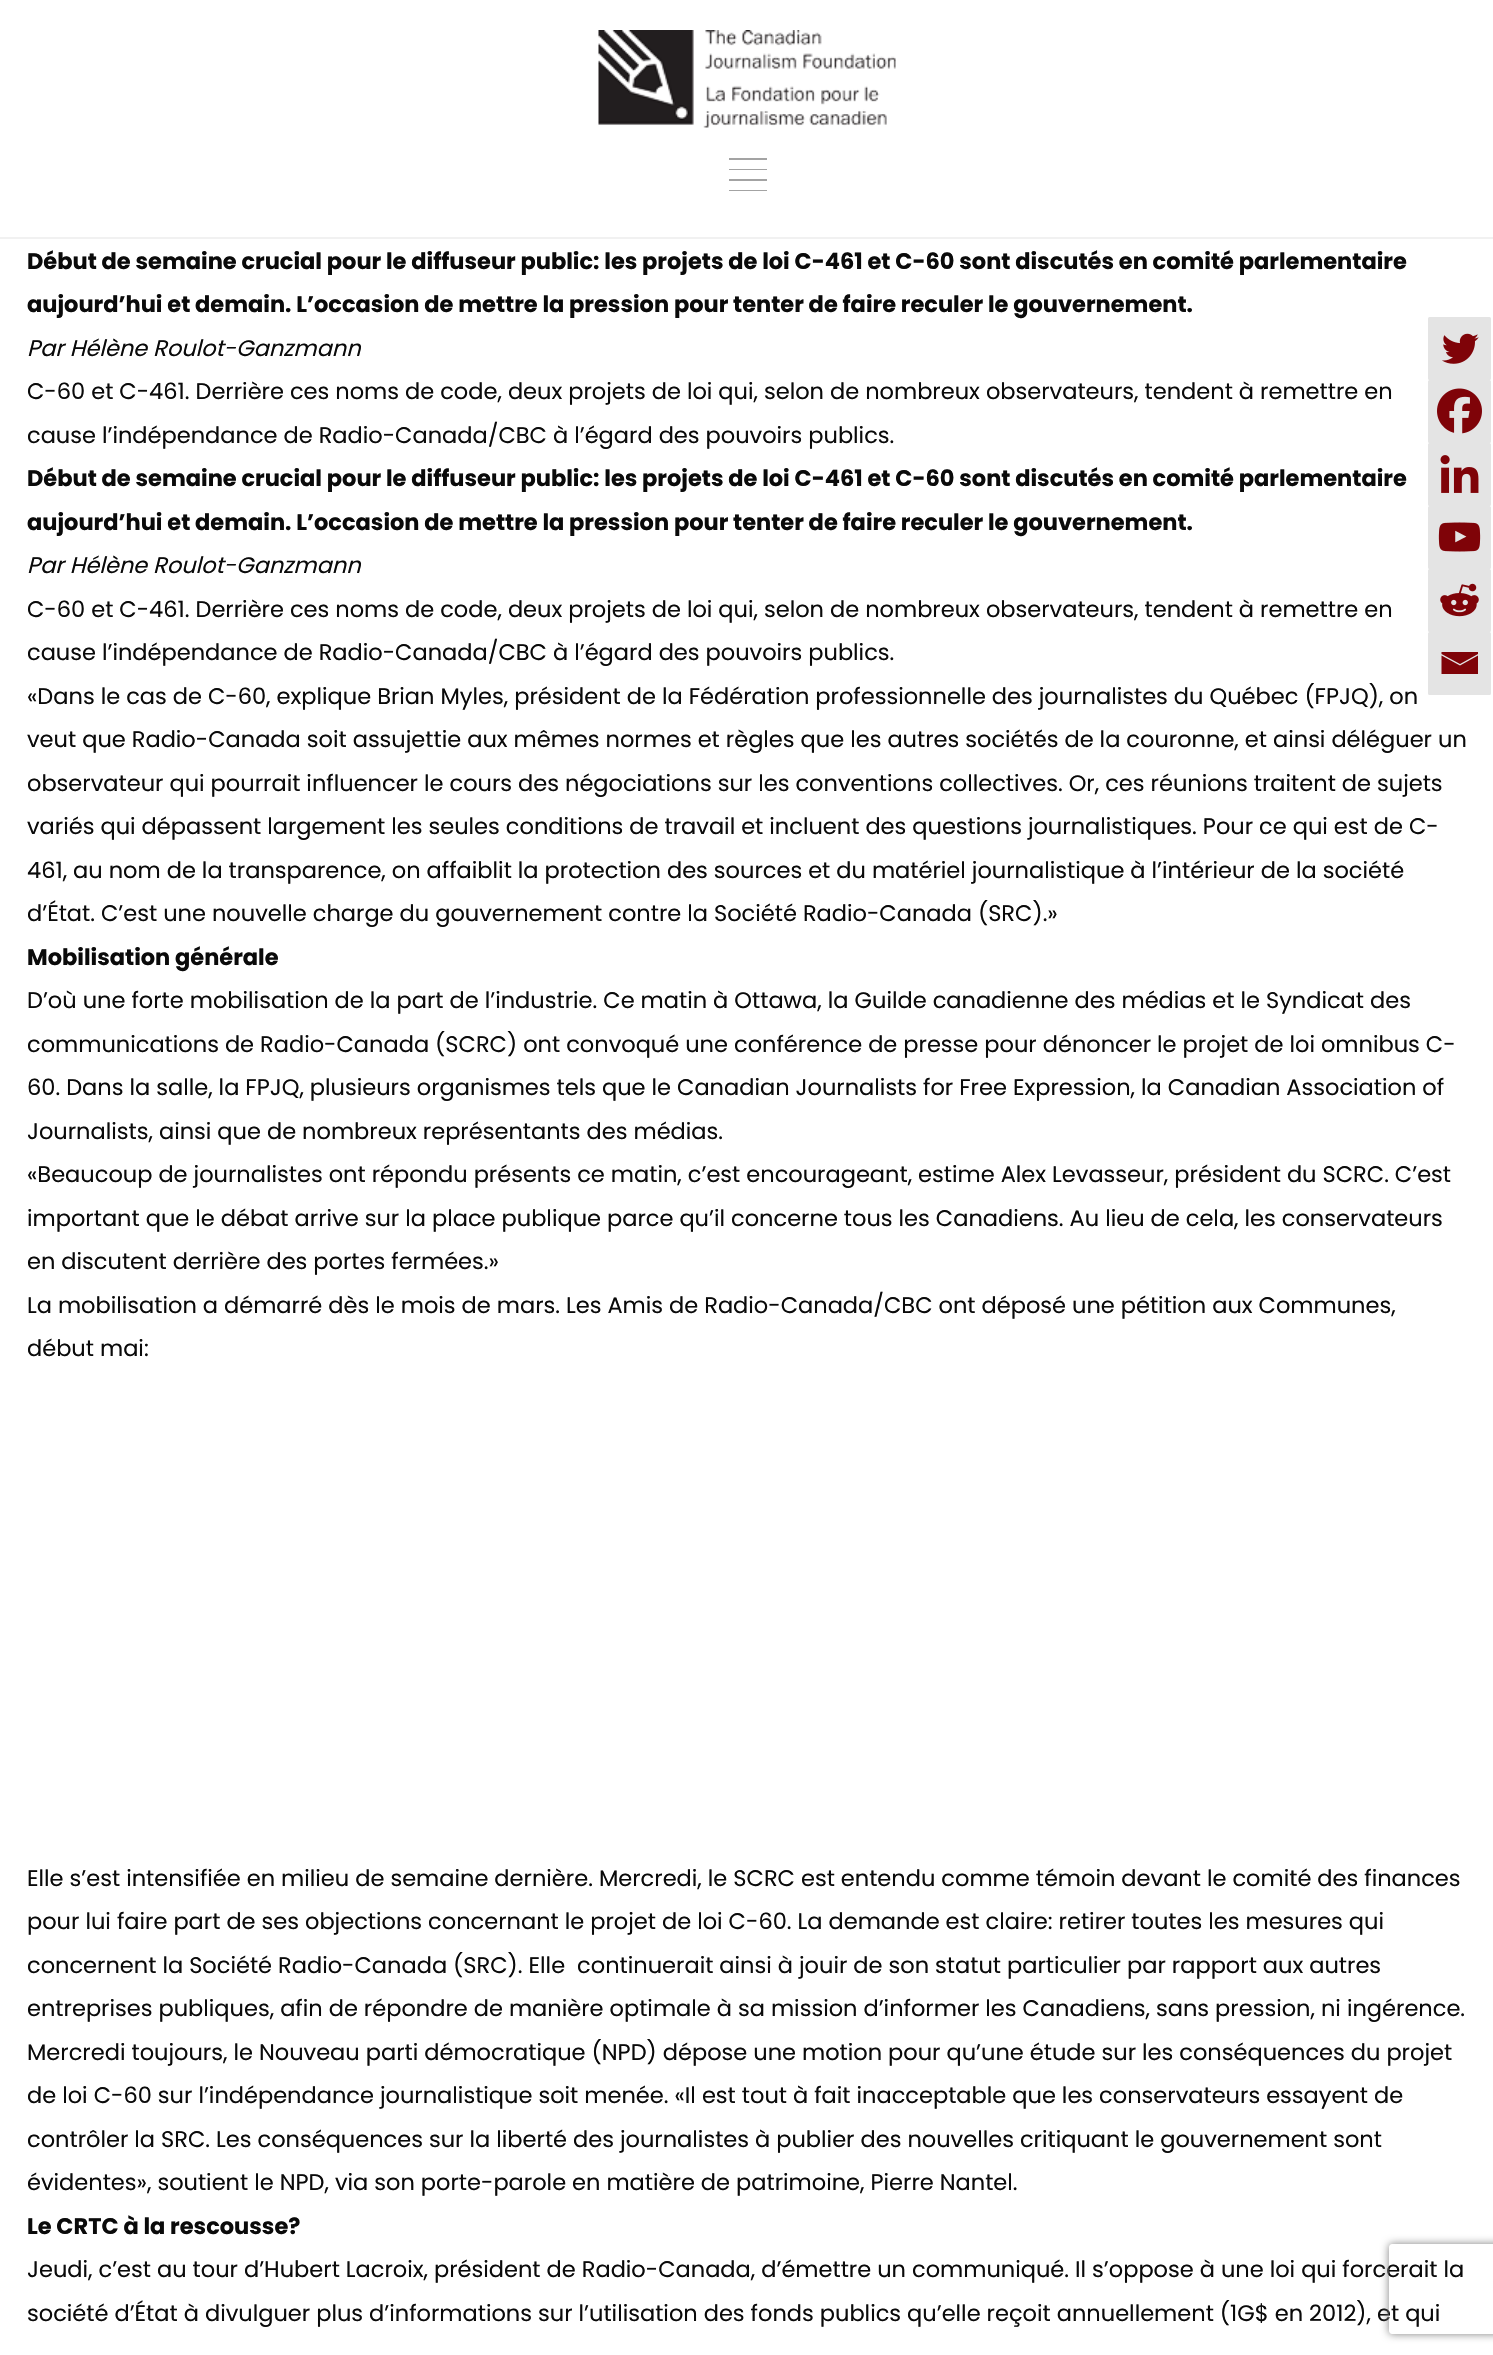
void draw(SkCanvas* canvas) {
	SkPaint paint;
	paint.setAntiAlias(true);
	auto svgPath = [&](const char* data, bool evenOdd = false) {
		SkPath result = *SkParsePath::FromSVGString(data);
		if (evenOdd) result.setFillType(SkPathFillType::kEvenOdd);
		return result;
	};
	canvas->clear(0xffffffff);
	paint.setColor(0xfff1f1f1);
	canvas->drawRect(SkRect::MakeXYWH(0, 237, 1493, 2), paint);
	canvas->drawImageRect(SkImages::DeferredFromEncodedData(SkData::MakeFromFileName("img1.png")), SkRect::MakeXYWH(598, 30, 298, 98), SkSamplingOptions());
	paint.setColor(0xffa3a3a3);
	canvas->drawRect(SkRect::MakeXYWH(729, 158, 38, 2), paint);
	canvas->drawRect(SkRect::MakeXYWH(729, 169, 38, 1), paint);
	canvas->drawRect(SkRect::MakeXYWH(729, 179, 38, 2), paint);
	canvas->drawRect(SkRect::MakeXYWH(729, 190, 38, 1), paint);
	SkFont f1(fontMgr->matchFamilyStyle("Poppins", SkFontStyle::Bold()), 22.5);
	f1.setSubpixel(true);
	paint.setColor(0xff0a0a0a);
	canvas->drawString("Début de semaine crucial pour le diffuseur public: les projets de loi C-461 et C-60 sont discutés en comité parlementaire", 27, 269, f1, paint);
	canvas->drawString("aujourd’hui et demain. L’occasion de mettre la pression pour tenter de faire reculer le gouvernement.", 27, 312, f1, paint);
	SkFont f2(fontMgr->matchFamilyStyle("Poppins", SkFontStyle::Italic()), 22.5);
	f2.setSubpixel(true);
	canvas->drawString("Par Hélène Roulot-Ganzmann", 27, 356, f2, paint);
	paint.setColor(0xffe4e4e4);
	canvas->drawRoundRect(SkRect::MakeXYWH(1429, 318, 61, 61), 0.5, 0.5, paint);
	paint.setStroke(true);
	paint.setStrokeWidth(2);
	canvas->drawRoundRect(SkRect::MakeXYWH(1429, 318, 61, 61), 0.5, 0.5, paint);
	canvas->drawImageRect(SkImages::DeferredFromEncodedData(SkData::MakeFromFileName("img2.png")), SkRect::MakeXYWH(1442, 333, 37, 31), SkSamplingOptions());
	paint.setStroke(false);
	canvas->drawRoundRect(SkRect::MakeXYWH(1429, 381, 61, 61), 0.5, 0.5, paint);
	paint.setStroke(true);
	canvas->drawRoundRect(SkRect::MakeXYWH(1429, 381, 61, 61), 0.5, 0.5, paint);
	canvas->drawImageRect(SkImages::DeferredFromEncodedData(SkData::MakeFromFileName("img3.png")), SkRect::MakeXYWH(1437, 388, 45, 46), SkSamplingOptions());
	paint.setStroke(false);
	canvas->drawRoundRect(SkRect::MakeXYWH(1429, 444, 61, 61), 0.5, 0.5, paint);
	paint.setStroke(true);
	canvas->drawRoundRect(SkRect::MakeXYWH(1429, 444, 61, 61), 0.5, 0.5, paint);
	canvas->drawImageRect(SkImages::DeferredFromEncodedData(SkData::MakeFromFileName("img4.png")), SkRect::MakeXYWH(1440, 455, 39, 38), SkSamplingOptions());
	paint.setStroke(false);
	canvas->drawRoundRect(SkRect::MakeXYWH(1429, 507, 61, 61), 0.5, 0.5, paint);
	paint.setStroke(true);
	canvas->drawRoundRect(SkRect::MakeXYWH(1429, 507, 61, 61), 0.5, 0.5, paint);
	canvas->drawImageRect(SkImages::DeferredFromEncodedData(SkData::MakeFromFileName("img5.png")), SkRect::MakeXYWH(1438, 522, 43, 30), SkSamplingOptions());
	paint.setStroke(false);
	canvas->drawRoundRect(SkRect::MakeXYWH(1429, 570, 61, 61), 0.5, 0.5, paint);
	paint.setStroke(true);
	canvas->drawRoundRect(SkRect::MakeXYWH(1429, 570, 61, 61), 0.5, 0.5, paint);
	canvas->drawImageRect(SkImages::DeferredFromEncodedData(SkData::MakeFromFileName("img6.png")), SkRect::MakeXYWH(1440, 583, 39, 34), SkSamplingOptions());
	paint.setStroke(false);
	canvas->drawRoundRect(SkRect::MakeXYWH(1429, 633, 61, 61), 0.5, 0.5, paint);
	paint.setStroke(true);
	canvas->drawRoundRect(SkRect::MakeXYWH(1429, 633, 61, 61), 0.5, 0.5, paint);
	paint.setStroke(false);
	paint.setColor(0xff7f0308);
	canvas->drawPath(svgPath("M1440 652H1478V654L1460 664L1441.5 654V652M1441.5 655.5L1460 665.5L1478 655.5V674H1441.5V655.5"), paint);
	SkFont f3(fontMgr->matchFamilyStyle("Poppins", SkFontStyle::Normal()), 22.5);
	f3.setSubpixel(true);
	paint.setColor(0xff0a0a0a);
	canvas->drawString("C-60 et C-461. Derrière ces noms de code, deux projets de loi qui, selon de nombreux observateurs, tendent à remettre en", 27, 399, f3, paint);
	canvas->drawString("cause l’indépendance de Radio-Canada/CBC à l’égard des pouvoirs publics.", 27, 443, f3, paint);
	canvas->drawString("Début de semaine crucial pour le diffuseur public: les projets de loi C-461 et C-60 sont discutés en comité parlementaire", 27, 486, f1, paint);
	canvas->drawString("aujourd’hui et demain. L’occasion de mettre la pression pour tenter de faire reculer le gouvernement.", 27, 530, f1, paint);
	canvas->drawString("Par Hélène Roulot-Ganzmann", 27, 573, f2, paint);
	canvas->drawString("C-60 et C-461. Derrière ces noms de code, deux projets de loi qui, selon de nombreux observateurs, tendent à remettre en", 27, 617, f3, paint);
	canvas->drawString("cause l’indépendance de Radio-Canada/CBC à l’égard des pouvoirs publics.", 27, 660, f3, paint);
	canvas->drawString("«Dans le cas de C-60, explique Brian Myles, président de la Fédération professionnelle des journalistes du Québec (FPJQ), on", 27, 704, f3, paint);
	canvas->drawString("veut que Radio-Canada soit assujettie aux mêmes normes et règles que les autres sociétés de la couronne, et ainsi déléguer un", 27, 747, f3, paint);
	canvas->drawString("observateur qui pourrait influencer le cours des négociations sur les conventions collectives. Or, ces réunions traitent de sujets", 27, 791, f3, paint);
	canvas->drawString("variés qui dépassent largement les seules conditions de travail et incluent des questions journalistiques. Pour ce qui est de C-", 27, 834, f3, paint);
	canvas->drawString("461, au nom de la transparence, on affaiblit la protection des sources et du matériel journalistique à l’intérieur de la société", 27, 878, f3, paint);
	canvas->drawString("d’État. C’est une nouvelle charge du gouvernement contre la Société Radio-Canada (SRC).»", 27, 921, f3, paint);
	canvas->drawString("Mobilisation générale", 27, 965, f1, paint);
	canvas->drawString("D’où une forte mobilisation de la part de l’industrie. Ce matin à Ottawa, la Guilde canadienne des médias et le Syndicat des", 27, 1008, f3, paint);
	canvas->drawString("communications de Radio-Canada (SCRC) ont convoqué une conférence de presse pour dénoncer le projet de loi omnibus C-", 27, 1052, f3, paint);
	canvas->drawString("60. Dans la salle, la FPJQ, plusieurs organismes tels que le Canadian Journalists for Free Expression, la Canadian Association of", 27, 1095, f3, paint);
	canvas->drawString("Journalists, ainsi que de nombreux représentants des médias.", 27, 1139, f3, paint);
	canvas->drawString("«Beaucoup de journalistes ont répondu présents ce matin, c’est encourageant, estime Alex Levasseur, président du SCRC. C’est", 27, 1182, f3, paint);
	canvas->drawString("important que le débat arrive sur la place publique parce qu’il concerne tous les Canadiens. Au lieu de cela, les conservateurs", 27, 1226, f3, paint);
	canvas->drawString("en discutent derrière des portes fermées.»", 27, 1269, f3, paint);
	canvas->drawString("La mobilisation a démarré dès le mois de mars. Les Amis de Radio-Canada/CBC ont déposé une pétition aux Communes,", 27, 1313, f3, paint);
	canvas->drawString("début mai:", 27, 1356, f3, paint);
	canvas->drawString("Elle s’est intensifiée en milieu de semaine dernière. Mercredi, le SCRC est entendu comme témoin devant le comité des finances", 27, 1886, f3, paint);
	canvas->drawString("pour lui faire part de ses objections concernant le projet de loi C-60. La demande est claire: retirer toutes les mesures qui", 27, 1929, f3, paint);
	canvas->drawString("concernent la Société Radio-Canada (SRC). Elle  continuerait ainsi à jouir de son statut particulier par rapport aux autres", 27, 1973, f3, paint);
	canvas->drawString("entreprises publiques, afin de répondre de manière optimale à sa mission d’informer les Canadiens, sans pression, ni ingérence.", 27, 2016, f3, paint);
	canvas->drawString("Mercredi toujours, le Nouveau parti démocratique (NPD) dépose une motion pour qu’une étude sur les conséquences du projet", 27, 2060, f3, paint);
	canvas->drawString("de loi C-60 sur l’indépendance journalistique soit menée. «Il est tout à fait inacceptable que les conservateurs essayent de", 27, 2103, f3, paint);
	canvas->drawString("contrôler la SRC. Les conséquences sur la liberté des journalistes à publier des nouvelles critiquant le gouvernement sont", 27, 2147, f3, paint);
	canvas->drawString("évidentes», soutient le NPD, via son porte-parole en matière de patrimoine, Pierre Nantel.", 27, 2190, f3, paint);
	canvas->drawString("Le CRTC à la rescousse?", 27, 2234, f1, paint);
	canvas->drawString("Jeudi, c’est au tour d’Hubert Lacroix, président de Radio-Canada, d’émettre un communiqué. Il s’oppose à une loi qui forcerait la", 27, 2277, f3, paint);
	canvas->drawString("société d’État à divulguer plus d’informations sur l’utilisation des fonds publics qu’elle reçoit annuellement (1G$ en 2012), et qui", 27, 2321, f3, paint);
	canvas->save();
	canvas->clipPath(svgPath("M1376 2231H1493V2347H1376ZM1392 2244H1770C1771.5 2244 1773 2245.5 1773 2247V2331C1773 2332.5 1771.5 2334 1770 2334H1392C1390.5 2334 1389 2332.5 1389 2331V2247C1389 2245.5 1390.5 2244 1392 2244Z", true), true);
	paint.setColor(0xff808080);
	paint.setMaskFilter(SkMaskFilter::MakeBlur(kNormal_SkBlurStyle, 4));
	canvas->drawRoundRect(SkRect::MakeXYWH(1389, 2244, 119, 90), 3, 3, paint);
	paint.setMaskFilter(nullptr);
	canvas->restore();
}
